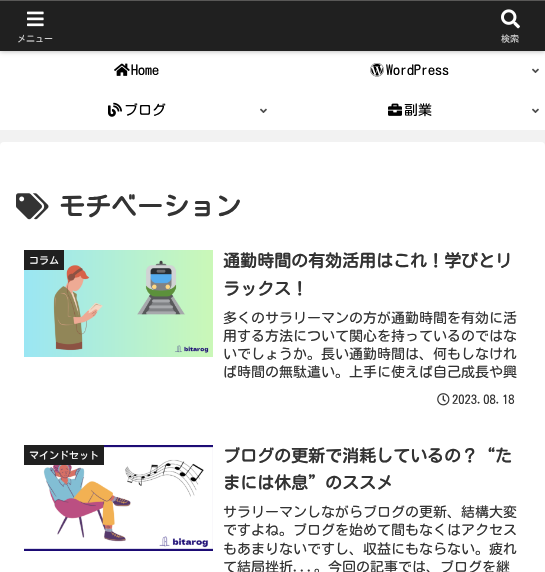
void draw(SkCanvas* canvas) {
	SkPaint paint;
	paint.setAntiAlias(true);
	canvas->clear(0xfff2f2f2);
	paint.setColor(0xffffffff);
	canvas->drawRect(SkRect::MakeXYWH(0, 51, 545, 79), paint);
	paint.setColor(0xffa9a9a9);
	paint.setMaskFilter(SkMaskFilter::MakeBlur(kNormal_SkBlurStyle, 2.5));
	canvas->drawRect(SkRect::MakeXYWH(0, 0, 545, 51), paint);
	paint.setMaskFilter(nullptr);
	paint.setColor(0xff202020);
	canvas->drawRect(SkRect::MakeXYWH(0, 1, 545, 50), paint);
	paint.setColor(0xff595857);
	canvas->drawRect(SkRect::MakeXYWH(0, 0, 545, 1), paint);
	canvas->drawImageRect(SkImages::DeferredFromEncodedData(SkData::MakeFromFileName("img1.png")), SkRect::MakeXYWH(27, 11, 17, 16), SkSamplingOptions());
	SkFont f1(fontMgr->matchFamilyStyle("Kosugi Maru", SkFontStyle::Normal()), 9);
	f1.setSubpixel(true);
	paint.setColor(0xffd2d2d2);
	canvas->drawString("メニュー", 17, 42, f1, paint);
	canvas->drawImageRect(SkImages::DeferredFromEncodedData(SkData::MakeFromFileName("img2.png")), SkRect::MakeXYWH(501, 9, 19, 20), SkSamplingOptions());
	canvas->drawString("検索", 501, 42, f1, paint);
	canvas->drawImageRect(SkImages::DeferredFromEncodedData(SkData::MakeFromFileName("img3.png")), SkRect::MakeXYWH(114, 63, 16, 13), SkSamplingOptions());
	SkFont f2(fontMgr->matchFamilyStyle("Kosugi Maru", SkFontStyle::Normal()), 14);
	f2.setSubpixel(true);
	paint.setColor(0xff000000);
	canvas->drawString("Home", 131, 75, f2, paint);
	canvas->drawImageRect(SkImages::DeferredFromEncodedData(SkData::MakeFromFileName("img4.png")), SkRect::MakeXYWH(370, 63, 14, 14), SkSamplingOptions());
	canvas->drawString("WordPress", 386, 75, f2, paint);
	canvas->drawImageRect(SkImages::DeferredFromEncodedData(SkData::MakeFromFileName("img5.png")), SkRect::MakeXYWH(532, 68, 7, 5), SkSamplingOptions());
	canvas->drawImageRect(SkImages::DeferredFromEncodedData(SkData::MakeFromFileName("img6.png")), SkRect::MakeXYWH(108, 102, 14, 15), SkSamplingOptions());
	canvas->drawString("ブログ", 124, 115, f2, paint);
	canvas->drawImageRect(SkImages::DeferredFromEncodedData(SkData::MakeFromFileName("img5.png")), SkRect::MakeXYWH(260, 108, 7, 5), SkSamplingOptions());
	canvas->drawImageRect(SkImages::DeferredFromEncodedData(SkData::MakeFromFileName("img7.png")), SkRect::MakeXYWH(388, 103, 14, 13), SkSamplingOptions());
	canvas->drawString("副業", 404, 115, f2, paint);
	canvas->drawImageRect(SkImages::DeferredFromEncodedData(SkData::MakeFromFileName("img5.png")), SkRect::MakeXYWH(532, 108, 7, 5), SkSamplingOptions());
	paint.setColor(0xffffffff);
	canvas->drawRoundRect(SkRect::MakeXYWH(0, 142, 545, 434), 4, 4, paint);
	canvas->drawImageRect(SkImages::DeferredFromEncodedData(SkData::MakeFromFileName("img8.png")), SkRect::MakeXYWH(16, 193, 33, 27), SkSamplingOptions());
	SkFont f3(fontMgr->matchFamilyStyle("Kosugi Maru", SkFontStyle::Bold()), 26);
	f3.setSubpixel(true);
	paint.setColor(0xff333333);
	canvas->drawString("モチベーション", 59, 216, f3, paint);
	canvas->drawImageRect(SkImages::DeferredFromEncodedData(SkData::MakeFromFileName("img9.png")), SkRect::MakeXYWH(24, 250, 189, 107), SkSamplingOptions());
	paint.setColor(0xff202020);
	canvas->drawRect(SkRect::MakeXYWH(24, 250, 40, 20), paint);
	SkFont f4(fontMgr->matchFamilyStyle("Kosugi Maru", SkFontStyle::Normal()), 10);
	f4.setSubpixel(true);
	paint.setColor(0xffffffff);
	canvas->drawString("コラム", 29, 264, f4, paint);
	SkFont f5(fontMgr->matchFamilyStyle("Kosugi Maru", SkFontStyle::Bold()), 17);
	f5.setSubpixel(true);
	paint.setColor(0xff333333);
	canvas->drawString("通勤時間の有効活用はこれ！学びとリ", 223, 267, f5, paint);
	canvas->drawString("ラックス！", 223, 295, f5, paint);
	canvas->drawString("多くのサラリーマンの方が通勤時間を有効に活", 223, 323, f2, paint);
	canvas->drawString("用する方法について関心を持っているのではな", 223, 341, f2, paint);
	canvas->drawString("いでしょうか。長い通勤時間は、何もしなけれ", 223, 359, f2, paint);
	canvas->drawString("ば時間の無駄遣い。上手に使えば自己成長や興", 223, 377, f2, paint);
	canvas->drawImageRect(SkImages::DeferredFromEncodedData(SkData::MakeFromFileName("img10.png")), SkRect::MakeXYWH(437, 393, 13, 13), SkSamplingOptions());
	SkFont f6(fontMgr->matchFamilyStyle("Kosugi Maru", SkFontStyle::Normal()), 12.5);
	f6.setSubpixel(true);
	canvas->drawString("2023.08.18", 452, 404, f6, paint);
	canvas->drawImageRect(SkImages::DeferredFromEncodedData(SkData::MakeFromFileName("img11.png")), SkRect::MakeXYWH(24, 445, 189, 106), SkSamplingOptions());
	paint.setColor(0xff202020);
	canvas->drawRect(SkRect::MakeXYWH(24, 445, 80, 20), paint);
	paint.setColor(0xffffffff);
	canvas->drawString("マインドセット", 29, 459, f4, paint);
	paint.setColor(0xff333333);
	canvas->drawString("ブログの更新で消耗しているの？“た", 223, 462, f5, paint);
	canvas->drawString("まには休息”のススメ", 223, 489, f5, paint);
	canvas->drawString("サラリーマンしながらブログの更新、結構大変", 223, 517, f2, paint);
	canvas->drawString("ですよね。ブログを始めて間もなくはアクセス", 223, 535, f2, paint);
	canvas->drawString("もあまりないですし、収益にもならない。疲れ", 223, 554, f2, paint);
	canvas->drawString("て結局挫折...。今回の記事では、ブログを継", 223, 572, f2, paint);
}
